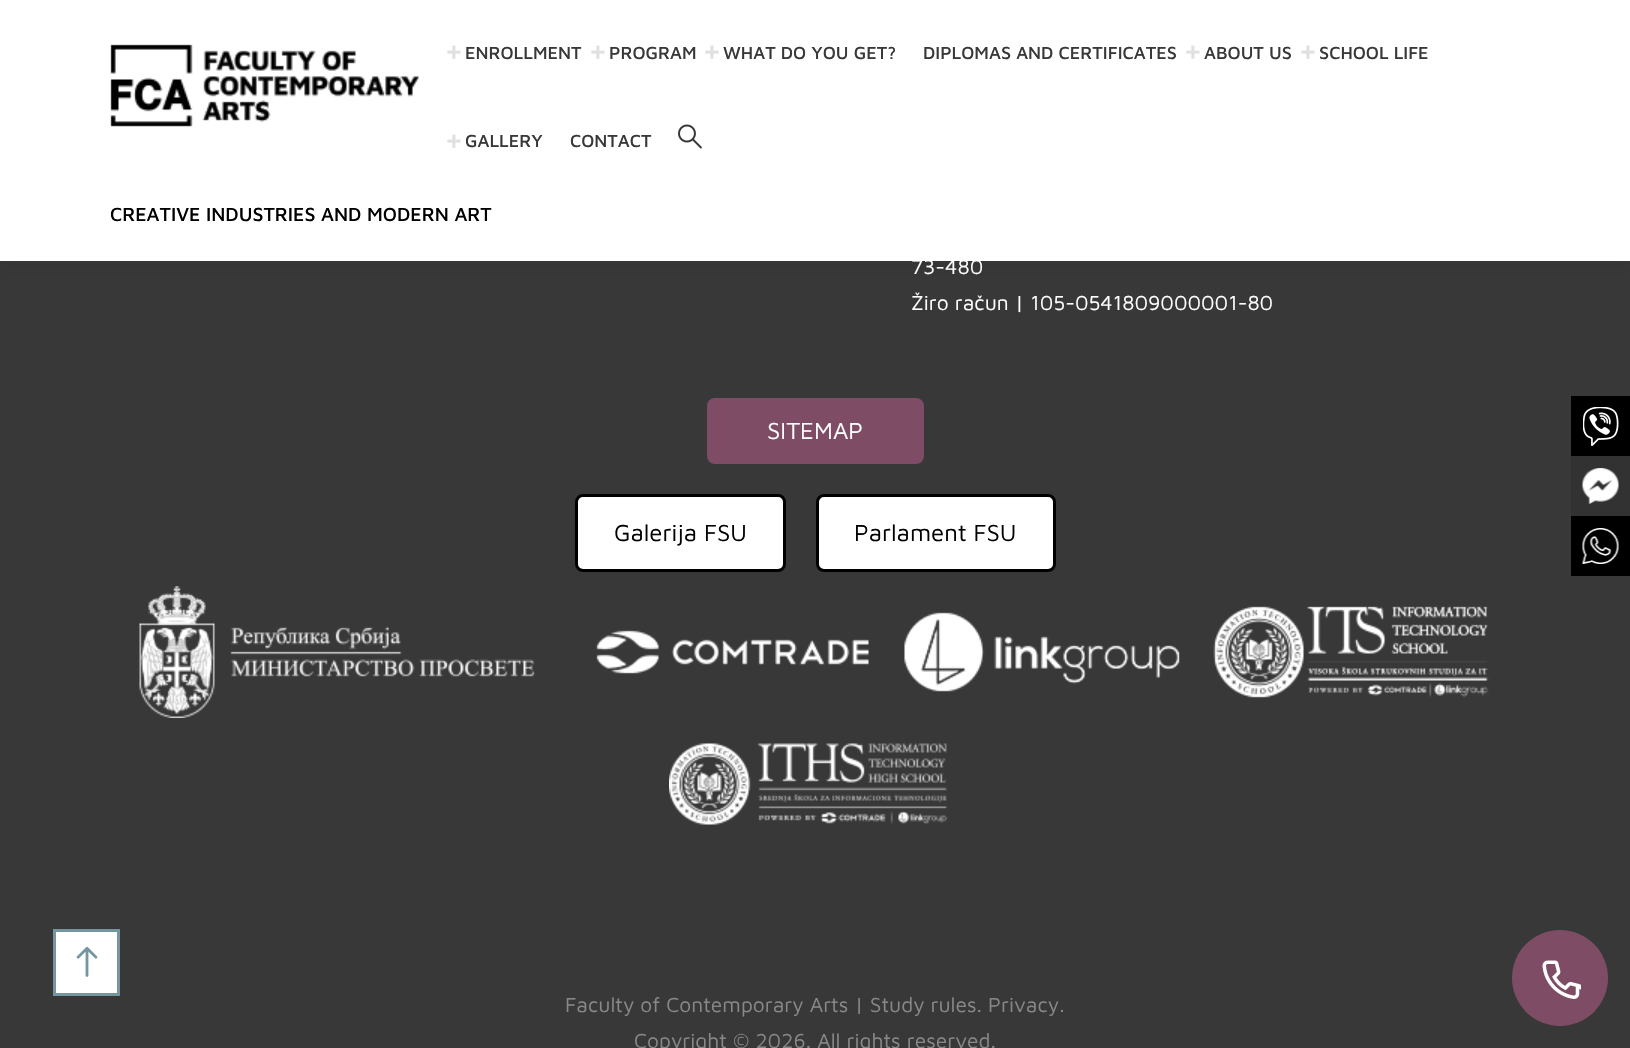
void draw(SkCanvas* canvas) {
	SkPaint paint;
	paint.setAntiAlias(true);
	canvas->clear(0xff383838);
	paint.setColor(0xffffffff);
	canvas->drawRect(SkRect::MakeXYWH(54.5, 930.5, 64, 64), paint);
	paint.setStroke(true);
	paint.setStrokeWidth(3);
	paint.setColor(0xff7595a0);
	canvas->drawRect(SkRect::MakeXYWH(54.5, 930.5, 64, 64), paint);
	canvas->drawImageRect(SkImages::DeferredFromEncodedData(SkData::MakeFromFileName("img1.png")), SkRect::MakeXYWH(76, 946, 22, 31), SkSamplingOptions());
	paint.setStroke(false);
	paint.setColor(0x0f000000);
	paint.setMaskFilter(SkMaskFilter::MakeBlur(kNormal_SkBlurStyle, 7.5));
	canvas->drawRect(SkRect::MakeXYWH(0, 6, 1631, 261), paint);
	paint.setMaskFilter(nullptr);
	paint.setColor(0xffffffff);
	canvas->drawRect(SkRect::MakeXYWH(0, 0, 1630, 261), paint);
	canvas->drawImageRect(SkImages::DeferredFromEncodedData(SkData::MakeFromFileName("img2.png")), SkRect::MakeXYWH(110, 44, 309, 83), SkSamplingOptions());
	SkFont f1(fontMgr->matchFamilyStyle("Maven Pro", SkFontStyle(500, SkFontStyle::kNormal_Width, SkFontStyle::kUpright_Slant)), 36);
	f1.setSubpixel(true);
	paint.setColor(0xffe0e0e0);
	canvas->drawString("+", 444, 63, f1, paint);
	SkFont f2(fontMgr->matchFamilyStyle("Maven Pro", SkFontStyle(500, SkFontStyle::kNormal_Width, SkFontStyle::kUpright_Slant)), 18);
	f2.setSubpixel(true);
	paint.setColor(0xff383838);
	canvas->drawString("ENROLLMENT", 465, 59, f2, paint);
	paint.setColor(0xffe0e0e0);
	canvas->drawString("+", 588, 63, f1, paint);
	paint.setColor(0xff383838);
	canvas->drawString("PROGRAM", 609, 59, f2, paint);
	paint.setColor(0xffe0e0e0);
	canvas->drawString("+", 702, 63, f1, paint);
	paint.setColor(0xff383838);
	canvas->drawString("WHAT DO YOU GET?", 723, 59, f2, paint);
	canvas->drawString("DIPLOMAS AND CERTIFICATES", 923, 59, f2, paint);
	paint.setColor(0xffe0e0e0);
	canvas->drawString("+", 1183, 63, f1, paint);
	paint.setColor(0xff383838);
	canvas->drawString("ABOUT US", 1204, 59, f2, paint);
	paint.setColor(0xffe0e0e0);
	canvas->drawString("+", 1298, 63, f1, paint);
	paint.setColor(0xff383838);
	canvas->drawString("SCHOOL LIFE", 1319, 59, f2, paint);
	paint.setColor(0xffe0e0e0);
	canvas->drawString("+", 444, 152, f1, paint);
	paint.setColor(0xff383838);
	canvas->drawString("GALLERY", 465, 147, f2, paint);
	canvas->drawString("CONTACT", 570, 147, f2, paint);
	canvas->drawImageRect(SkImages::DeferredFromEncodedData(SkData::MakeFromFileName("img3.png")), SkRect::MakeXYWH(678, 124, 24, 25), SkSamplingOptions());
	SkFont f3(fontMgr->matchFamilyStyle("Maven Pro", SkFontStyle(500, SkFontStyle::kNormal_Width, SkFontStyle::kUpright_Slant)), 19.5);
	f3.setSubpixel(true);
	paint.setColor(0xff000000);
	canvas->drawString("CREATIVE INDUSTRIES AND MODERN ART", 110, 221, f3, paint);
	SkFont f4(fontMgr->matchFamilyStyle("Maven Pro", SkFontStyle::Normal()), 21);
	f4.setSubpixel(true);
	paint.setColor(0xffffffff);
	canvas->drawString("73-480", 911, 274, f4, paint);
	canvas->drawString("Žiro račun | 105-0541809000001-80", 911, 310, f4, paint);
	paint.setColor(0xff7e4c65);
	canvas->drawRoundRect(SkRect::MakeXYWH(707, 398, 217, 66), 8, 8, paint);
	SkFont f5(fontMgr->matchFamilyStyle("Maven Pro", SkFontStyle::Normal()), 24);
	f5.setSubpixel(true);
	paint.setColor(0xffffffff);
	canvas->drawString("SITEMAP", 767, 439, f5, paint);
	canvas->drawRoundRect(SkRect::MakeXYWH(576.5, 495.5, 208, 75), 6.5, 6.5, paint);
	paint.setStroke(true);
	paint.setColor(0xff000000);
	canvas->drawRoundRect(SkRect::MakeXYWH(576.5, 495.5, 208, 75), 6.5, 6.5, paint);
	paint.setStroke(false);
	canvas->drawString("Galerija FSU", 614, 541, f5, paint);
	paint.setColor(0xffffffff);
	canvas->drawRoundRect(SkRect::MakeXYWH(817.5, 495.5, 237, 75), 6.5, 6.5, paint);
	paint.setStroke(true);
	paint.setColor(0xff000000);
	canvas->drawRoundRect(SkRect::MakeXYWH(817.5, 495.5, 237, 75), 6.5, 6.5, paint);
	paint.setStroke(false);
	canvas->drawString("Parlament FSU", 854, 541, f5, paint);
	canvas->drawImageRect(SkImages::DeferredFromEncodedData(SkData::MakeFromFileName("img4.png")), SkRect::MakeXYWH(139, 586, 396, 132), SkSamplingOptions());
	canvas->drawImageRect(SkImages::DeferredFromEncodedData(SkData::MakeFromFileName("img5.png")), SkRect::MakeXYWH(596, 630, 273, 44), SkSamplingOptions());
	canvas->drawImageRect(SkImages::DeferredFromEncodedData(SkData::MakeFromFileName("img6.png")), SkRect::MakeXYWH(904, 612, 276, 80), SkSamplingOptions());
	canvas->drawImageRect(SkImages::DeferredFromEncodedData(SkData::MakeFromFileName("img7.png")), SkRect::MakeXYWH(1213, 606, 276, 92), SkSamplingOptions());
	canvas->drawImageRect(SkImages::DeferredFromEncodedData(SkData::MakeFromFileName("img8.png")), SkRect::MakeXYWH(669, 743, 278, 82), SkSamplingOptions());
	canvas->drawRect(SkRect::MakeXYWH(1571, 396, 59, 60), paint);
	canvas->drawImageRect(SkImages::DeferredFromEncodedData(SkData::MakeFromFileName("img9.png")), SkRect::MakeXYWH(1583, 407, 36, 39), SkSamplingOptions());
	paint.setColor(0xff323232);
	canvas->drawRect(SkRect::MakeXYWH(1571, 456, 59, 60), paint);
	canvas->drawImageRect(SkImages::DeferredFromEncodedData(SkData::MakeFromFileName("img10.png")), SkRect::MakeXYWH(1582, 468, 37, 36), SkSamplingOptions());
	paint.setColor(0xff000000);
	canvas->drawRect(SkRect::MakeXYWH(1571, 516, 59, 60), paint);
	canvas->drawImageRect(SkImages::DeferredFromEncodedData(SkData::MakeFromFileName("img11.png")), SkRect::MakeXYWH(1582, 528, 37, 36), SkSamplingOptions());
	paint.setColor(0xff888888);
	canvas->drawString("Faculty of Contemporary Arts | Study rules. Privacy.", 565, 1012, f4, paint);
	canvas->drawString("Copyright © 2026. All rights reserved.", 634, 1048, f4, paint);
	paint.setColor(0xff7e4c65);
	canvas->drawCircle(1560, 978, 48, paint);
	canvas->drawImageRect(SkImages::DeferredFromEncodedData(SkData::MakeFromFileName("img12.png")), SkRect::MakeXYWH(1542, 960, 39, 39), SkSamplingOptions());
}
